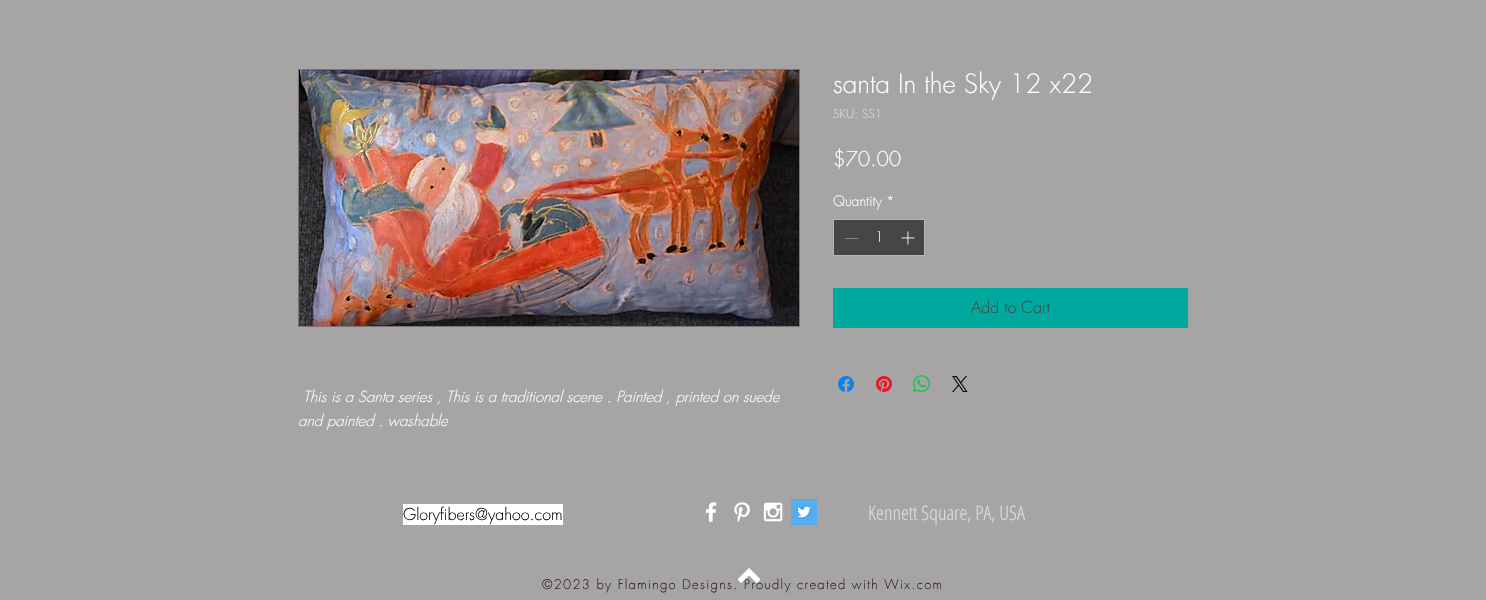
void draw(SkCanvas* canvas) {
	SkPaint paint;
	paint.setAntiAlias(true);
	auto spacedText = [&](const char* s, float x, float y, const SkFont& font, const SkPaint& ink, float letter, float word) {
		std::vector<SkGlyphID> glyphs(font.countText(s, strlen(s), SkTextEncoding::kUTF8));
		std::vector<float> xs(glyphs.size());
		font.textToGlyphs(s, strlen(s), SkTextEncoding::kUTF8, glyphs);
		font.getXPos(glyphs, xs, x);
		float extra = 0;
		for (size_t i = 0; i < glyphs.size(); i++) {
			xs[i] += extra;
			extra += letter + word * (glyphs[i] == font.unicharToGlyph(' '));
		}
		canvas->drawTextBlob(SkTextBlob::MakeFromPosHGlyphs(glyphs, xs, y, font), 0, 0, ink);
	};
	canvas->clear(0xffa6a4a4);
	SkFont f1(fontMgr->matchFamilyStyle("futura", SkFontStyle(300, SkFontStyle::kNormal_Width, SkFontStyle::kUpright_Slant)), 26);
	f1.setSubpixel(true);
	paint.setColor(0xffffffff);
	canvas->drawString("santa In the Sky 12 x22", 833, 93, f1, paint);
	SkFont f2(fontMgr->matchFamilyStyle("futura", SkFontStyle(300, SkFontStyle::kNormal_Width, SkFontStyle::kUpright_Slant)), 12);
	f2.setSubpixel(true);
	paint.setColor(0xffdedddd);
	canvas->drawString("SKU: SS1", 833, 118, f2, paint);
	SkFont f3(fontMgr->matchFamilyStyle("futura", SkFontStyle(300, SkFontStyle::kNormal_Width, SkFontStyle::kUpright_Slant)), 20);
	f3.setSubpixel(true);
	paint.setColor(0xffffffff);
	canvas->drawString("$70.00", 833, 166, f3, paint);
	SkFont f4(fontMgr->matchFamilyStyle("futura", SkFontStyle(300, SkFontStyle::kNormal_Width, SkFontStyle::kUpright_Slant)), 14);
	f4.setSubpixel(true);
	canvas->drawString("Quantity", 833, 206, f4, paint);
	canvas->drawString("*", 886, 206, f4, paint);
	paint.setColor(0xff474646);
	canvas->drawRect(SkRect::MakeXYWH(833.5, 219.5, 91, 36), paint);
	paint.setStroke(true);
	paint.setStrokeWidth(1);
	paint.setColor(0xffb5b5b5);
	canvas->drawRect(SkRect::MakeXYWH(833.5, 219.5, 91, 36), paint);
	paint.setStroke(false);
	paint.setColor(0xff878787);
	canvas->drawRect(SkRect::MakeXYWH(845, 238, 13, 1), paint);
	paint.setColor(0xffffffff);
	canvas->drawString("1", 875, 242, f4, paint);
	canvas->drawImageRect(SkImages::DeferredFromEncodedData(SkData::MakeFromFileName("img1.png")), SkRect::MakeXYWH(901, 231, 14, 14), SkSamplingOptions());
	paint.setColor(0xff00a99d);
	canvas->drawRect(SkRect::MakeXYWH(833, 288, 355, 40), paint);
	SkFont f5(fontMgr->matchFamilyStyle("futura", SkFontStyle(300, SkFontStyle::kNormal_Width, SkFontStyle::kUpright_Slant)), 16);
	f5.setSubpixel(true);
	paint.setColor(0xff474646);
	canvas->drawString("Add to Cart", 971, 313, f5, paint);
	canvas->drawImageRect(SkImages::DeferredFromEncodedData(SkData::MakeFromFileName("img2.png")), SkRect::MakeXYWH(838, 376, 16, 16), SkSamplingOptions());
	canvas->drawImageRect(SkImages::DeferredFromEncodedData(SkData::MakeFromFileName("img3.png")), SkRect::MakeXYWH(876, 376, 16, 16), SkSamplingOptions());
	canvas->drawImageRect(SkImages::DeferredFromEncodedData(SkData::MakeFromFileName("img4.png")), SkRect::MakeXYWH(913, 375, 17, 17), SkSamplingOptions());
	canvas->drawImageRect(SkImages::DeferredFromEncodedData(SkData::MakeFromFileName("img5.png")), SkRect::MakeXYWH(952, 376, 16, 16), SkSamplingOptions());
	paint.setStroke(true);
	paint.setColor(0xff767676);
	canvas->drawRect(SkRect::MakeXYWH(298.5, 69.5, 501, 257), paint);
	canvas->drawImageRect(SkImages::DeferredFromEncodedData(SkData::MakeFromFileName("img6.png")), SkRect::MakeXYWH(299, 70, 500, 256), SkSamplingOptions());
	SkFont f6(fontMgr->matchFamilyStyle("futura", SkFontStyle(300, SkFontStyle::kNormal_Width, SkFontStyle::kItalic_Slant)), 15);
	f6.setSubpixel(true);
	paint.setStroke(false);
	paint.setColor(0xffffffff);
	canvas->drawString("This is a Santa series , This is a traditional scene . Painted , printed on suede", 303, 402, f6, paint);
	canvas->drawString("and painted . washable", 298, 426, f6, paint);
	canvas->drawRect(SkRect::MakeXYWH(403, 504, 160, 21), paint);
	paint.setColor(0xff000000);
	canvas->drawString("Gloryfibers@yahoo.com", 403, 520, f5, paint);
	canvas->drawImageRect(SkImages::DeferredFromEncodedData(SkData::MakeFromFileName("img7.png")), SkRect::MakeXYWH(705, 502, 12, 20), SkSamplingOptions());
	canvas->drawImageRect(SkImages::DeferredFromEncodedData(SkData::MakeFromFileName("img8.png")), SkRect::MakeXYWH(734, 502, 16, 20), SkSamplingOptions());
	canvas->drawImageRect(SkImages::DeferredFromEncodedData(SkData::MakeFromFileName("img9.png")), SkRect::MakeXYWH(763, 502, 20, 20), SkSamplingOptions());
	canvas->drawImageRect(SkImages::DeferredFromEncodedData(SkData::MakeFromFileName("img10.png")), SkRect::MakeXYWH(791, 499, 26, 26), SkSamplingOptions());
	SkFont f7(fontMgr->matchFamilyStyle("Open Sans Condensed", SkFontStyle(300, SkFontStyle::kNormal_Width, SkFontStyle::kUpright_Slant)), 20);
	f7.setSubpixel(true);
	paint.setColor(0xffdedddd);
	canvas->drawString("Kennett Square, PA, USA", 868, 520, f7, paint);
	SkFont f8(fontMgr->matchFamilyStyle("futura", SkFontStyle(300, SkFontStyle::kNormal_Width, SkFontStyle::kUpright_Slant)), 13);
	f8.setSubpixel(true);
	paint.setColor(0xff291c24);
	spacedText("©2023 by Flamingo Designs. Proudly created with Wix.com", 542, 589, f8, paint, 1.3, 0);
	canvas->drawImageRect(SkImages::DeferredFromEncodedData(SkData::MakeFromFileName("img11.png")), SkRect::MakeXYWH(738, 568, 22, 15), SkSamplingOptions());
}
